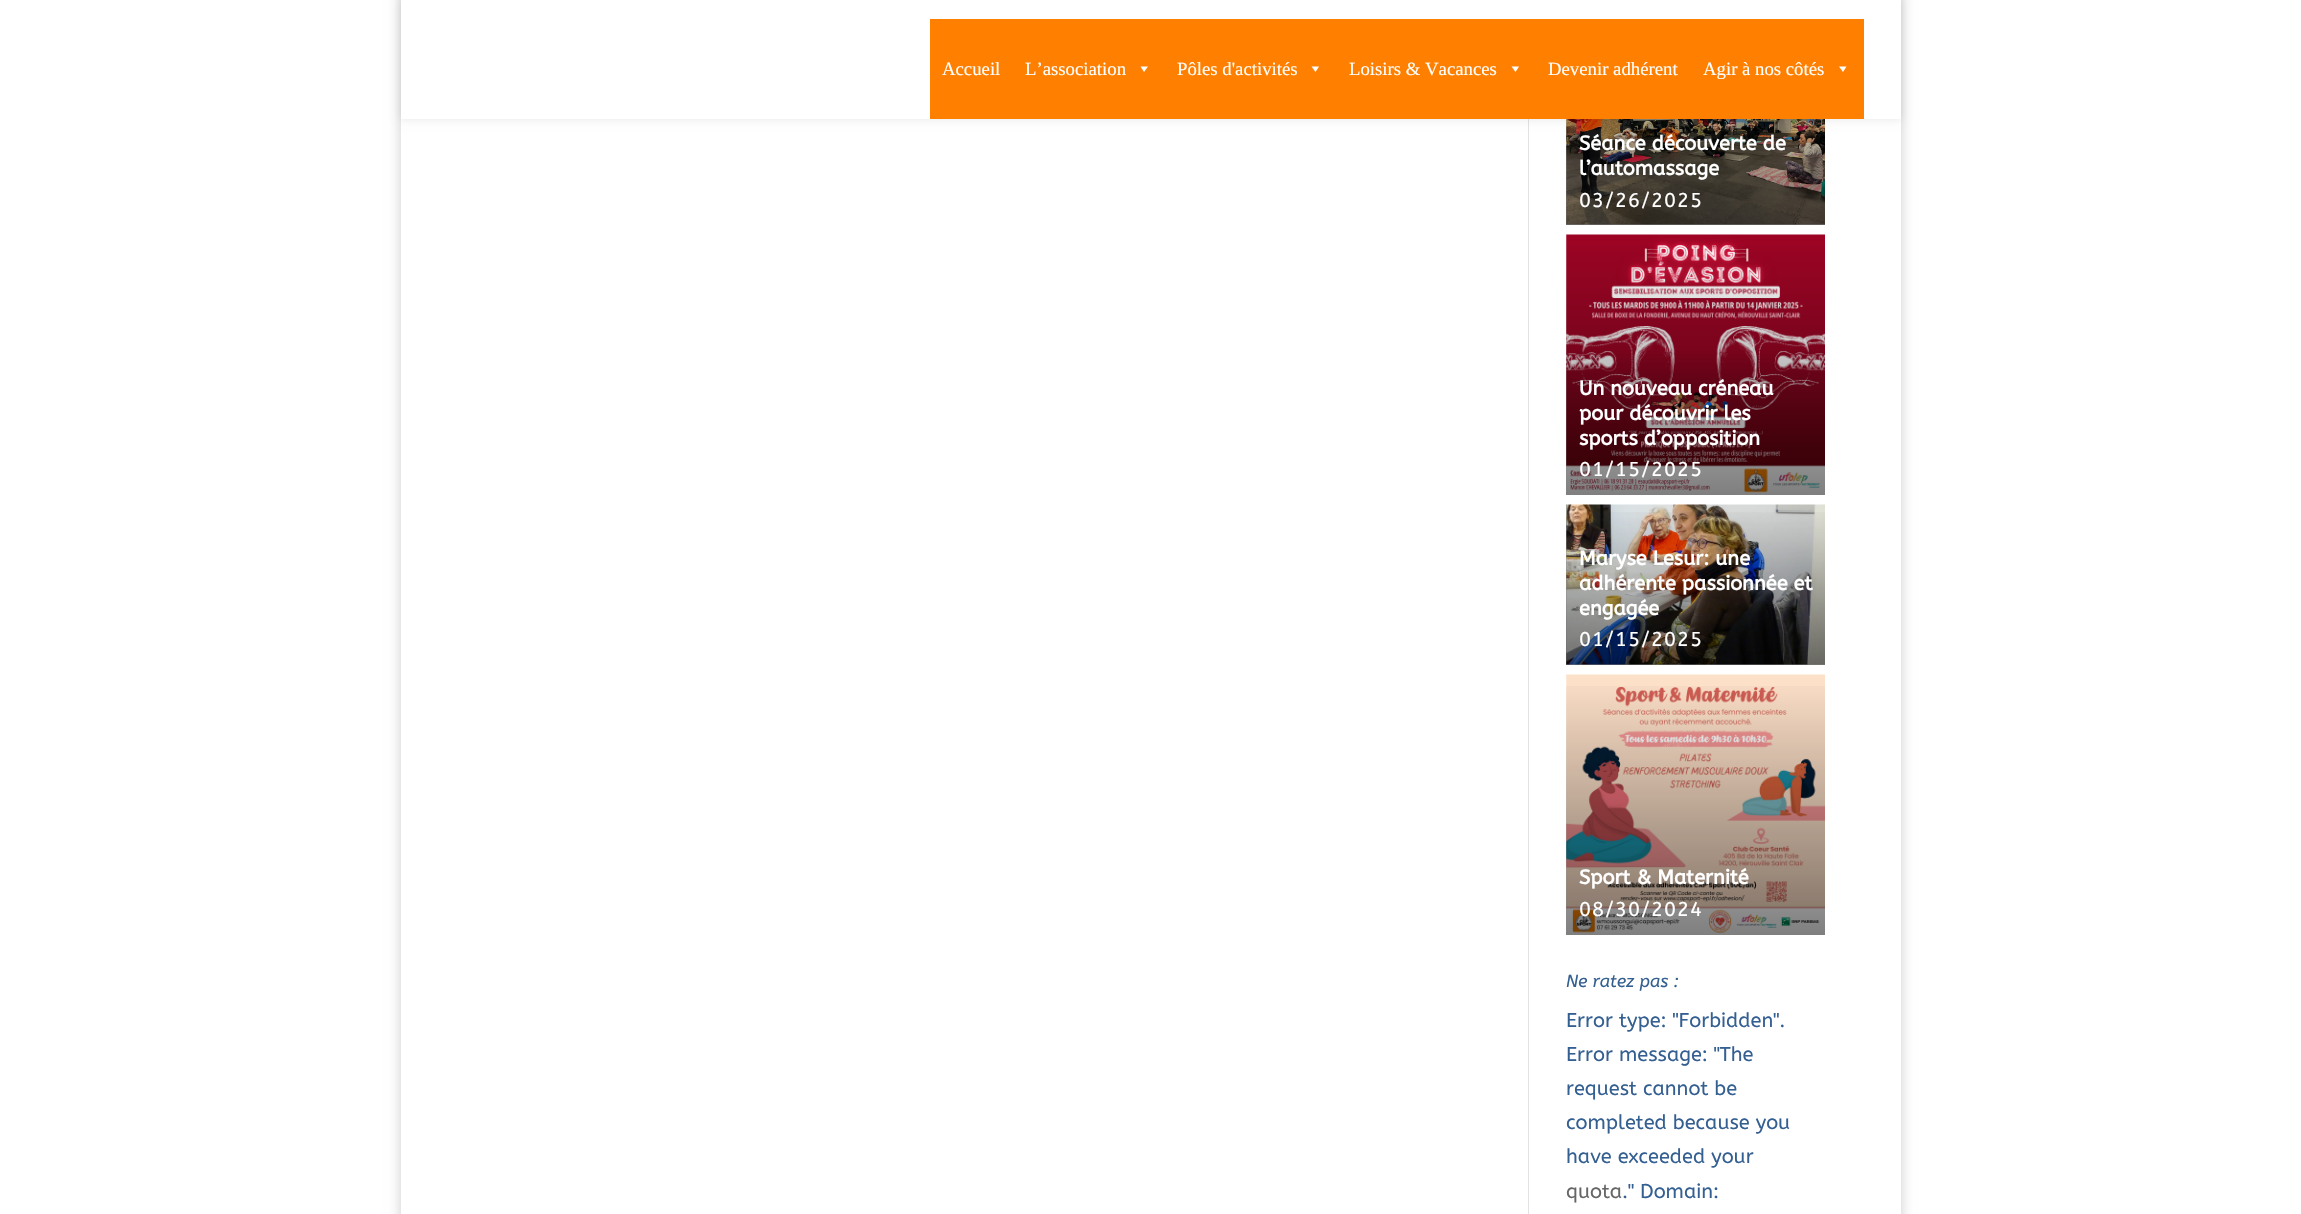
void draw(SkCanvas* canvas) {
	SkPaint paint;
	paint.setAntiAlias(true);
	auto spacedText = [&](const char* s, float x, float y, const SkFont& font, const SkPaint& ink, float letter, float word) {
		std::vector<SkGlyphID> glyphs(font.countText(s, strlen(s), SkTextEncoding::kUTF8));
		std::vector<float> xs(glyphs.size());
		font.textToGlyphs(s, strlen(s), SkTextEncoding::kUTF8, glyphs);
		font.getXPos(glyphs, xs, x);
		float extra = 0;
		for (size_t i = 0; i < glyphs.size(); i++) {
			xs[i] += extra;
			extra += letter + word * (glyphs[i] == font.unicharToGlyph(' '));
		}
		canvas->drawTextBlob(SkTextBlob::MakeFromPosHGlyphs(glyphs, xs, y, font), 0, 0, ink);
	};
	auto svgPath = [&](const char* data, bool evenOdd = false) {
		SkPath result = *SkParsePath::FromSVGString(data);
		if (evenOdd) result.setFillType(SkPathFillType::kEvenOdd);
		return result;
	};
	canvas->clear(0xffffffff);
	paint.setColor(0x33000000);
	paint.setMaskFilter(SkMaskFilter::MakeBlur(kNormal_SkBlurStyle, 6));
	canvas->drawRect(SkRect::MakeXYWH(401, -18, 1500, 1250), paint);
	paint.setMaskFilter(nullptr);
	paint.setColor(0xffffffff);
	canvas->drawRect(SkRect::MakeXYWH(401, 119, 1500, 1095), paint);
	paint.setColor(0xffe2e2e2);
	canvas->drawRect(SkRect::MakeXYWH(1528, 119, 1, 1095), paint);
	canvas->drawImageRect(SkImages::DeferredFromEncodedData(SkData::MakeFromFileName("img1.png")), SkRect::MakeXYWH(1566, 119, 259, 106), SkSamplingOptions());
	{
		const SkColor colors[] = {0x00000000, 0x80000000};
		const float stops[] = {0, 1};
		const SkPoint ends[] = {{1696, 31}, {1696, 225}};
		paint.setShader(SkGradientShader::MakeLinear(ends, colors, stops, 2, SkTileMode::kClamp));
		paint.setAlpha(255);
	}
	canvas->drawRect(SkRect::MakeXYWH(1566, 119, 259, 106), paint);
	paint.setShader(nullptr);
	paint.setColor(0x1a000000);
	paint.setMaskFilter(SkMaskFilter::MakeBlur(kNormal_SkBlurStyle, 4.5));
	canvas->drawRect(SkRect::MakeXYWH(401, 0, 1500, 119), paint);
	paint.setMaskFilter(nullptr);
	paint.setColor(0xffffffff);
	canvas->drawRect(SkRect::MakeXYWH(401, 0, 1500, 119), paint);
	paint.setColor(0xffff8000);
	canvas->drawRect(SkRect::MakeXYWH(930, 19, 934, 100), paint);
	SkFont f1(fontMgr->matchFamilyStyle("Liberation Serif", SkFontStyle::Normal()), 18.75);
	f1.setSubpixel(true);
	paint.setColor(0xffffffff);
	canvas->drawString("Accueil", 942, 75, f1, paint);
	canvas->drawString("L’association", 1025, 75, f1, paint);
	canvas->drawPath(svgPath("M1148 66.5L1144 72L1140.5 66.5Z"), paint);
	canvas->drawString("Pôles d'activités", 1177, 75, f1, paint);
	canvas->drawPath(svgPath("M1319 66.5L1315.5 72L1311.5 66.5Z"), paint);
	canvas->drawString("Loisirs & Vacances", 1349, 75, f1, paint);
	canvas->drawPath(svgPath("M1519 66.5L1515.5 72L1511.5 66.5Z"), paint);
	canvas->drawString("Devenir adhérent", 1548, 75, f1, paint);
	canvas->drawString("Agir à nos côtés", 1703, 75, f1, paint);
	canvas->drawPath(svgPath("M1846.5 66.5L1843 72L1839 66.5Z"), paint);
	SkFont f2(fontMgr->matchFamilyStyle("ABeeZee", SkFontStyle::Bold()), 20);
	f2.setSubpixel(true);
	canvas->drawString("Séance découverte de", 1579, 150, f2, paint);
	canvas->drawString("l’automassage", 1579, 175, f2, paint);
	SkFont f3(fontMgr->matchFamilyStyle("ABeeZee", SkFontStyle::Normal()), 20);
	f3.setSubpixel(true);
	spacedText("03/26/2025", 1579, 207, f3, paint, 1, 0);
	canvas->drawImageRect(SkImages::DeferredFromEncodedData(SkData::MakeFromFileName("img2.png")), SkRect::MakeXYWH(1566, 234, 259, 259), SkSamplingOptions());
	{
		const SkColor colors[] = {0x00000000, 0x80000000};
		const float stops[] = {0, 1};
		const SkPoint ends[] = {{1696, 235}, {1696, 495}};
		paint.setShader(SkGradientShader::MakeLinear(ends, colors, stops, 2, SkTileMode::kClamp));
		paint.setAlpha(255);
	}
	canvas->drawRect(SkRect::MakeXYWH(1566, 246, 259, 249), paint);
	paint.setShader(nullptr);
	paint.setColor(0xffffffff);
	canvas->drawString("Un nouveau créneau", 1579, 395, f2, paint);
	canvas->drawString("pour découvrir les", 1579, 420, f2, paint);
	canvas->drawString("sports d’opposition", 1579, 445, f2, paint);
	spacedText("01/15/2025", 1579, 476, f3, paint, 1, 0);
	canvas->drawImageRect(SkImages::DeferredFromEncodedData(SkData::MakeFromFileName("img3.png")), SkRect::MakeXYWH(1566, 504, 259, 161), SkSamplingOptions());
	{
		const SkColor colors[] = {0x00000000, 0x80000000};
		const float stops[] = {0, 1};
		const SkPoint ends[] = {{1696, 505}, {1696, 665}};
		paint.setShader(SkGradientShader::MakeLinear(ends, colors, stops, 2, SkTileMode::kClamp));
		paint.setAlpha(255);
	}
	canvas->drawRect(SkRect::MakeXYWH(1566, 512, 259, 153), paint);
	paint.setShader(nullptr);
	paint.setColor(0xffffffff);
	canvas->drawString("Maryse Lesur: une", 1579, 565, f2, paint);
	canvas->drawString("adhérente passionnée et", 1579, 590, f2, paint);
	canvas->drawString("engagée", 1579, 615, f2, paint);
	spacedText("01/15/2025", 1579, 646, f3, paint, 1, 0);
	canvas->drawImageRect(SkImages::DeferredFromEncodedData(SkData::MakeFromFileName("img4.png")), SkRect::MakeXYWH(1566, 674, 259, 259), SkSamplingOptions());
	{
		const SkColor colors[] = {0x00000000, 0x80000000};
		const float stops[] = {0, 1};
		const SkPoint ends[] = {{1696, 675}, {1696, 935}};
		paint.setShader(SkGradientShader::MakeLinear(ends, colors, stops, 2, SkTileMode::kClamp));
		paint.setAlpha(255);
	}
	canvas->drawRect(SkRect::MakeXYWH(1566, 686, 259, 249), paint);
	paint.setShader(nullptr);
	paint.setColor(0xffffffff);
	canvas->drawString("Sport & Maternité", 1579, 884, f2, paint);
	spacedText("08/30/2024", 1579, 916, f3, paint, 1, 0);
	SkFont f4(fontMgr->matchFamilyStyle("ABeeZee", SkFontStyle::Italic()), 17.5);
	f4.setSubpixel(true);
	paint.setColor(0xff345f91);
	canvas->drawString("Ne ratez pas :", 1566, 987, f4, paint);
	canvas->drawString("Error type: \"Forbidden\".", 1566, 1027, f3, paint);
	canvas->drawString("Error message: \"The", 1566, 1061, f3, paint);
	canvas->drawString("request cannot be", 1566, 1095, f3, paint);
	canvas->drawString("completed because you", 1566, 1129, f3, paint);
	canvas->drawString("have exceeded your", 1566, 1163, f3, paint);
	paint.setColor(0xff666666);
	canvas->drawString("quota", 1566, 1198, f3, paint);
	paint.setColor(0xff345f91);
	canvas->drawString(".\" Domain:", 1622, 1198, f3, paint);
}
